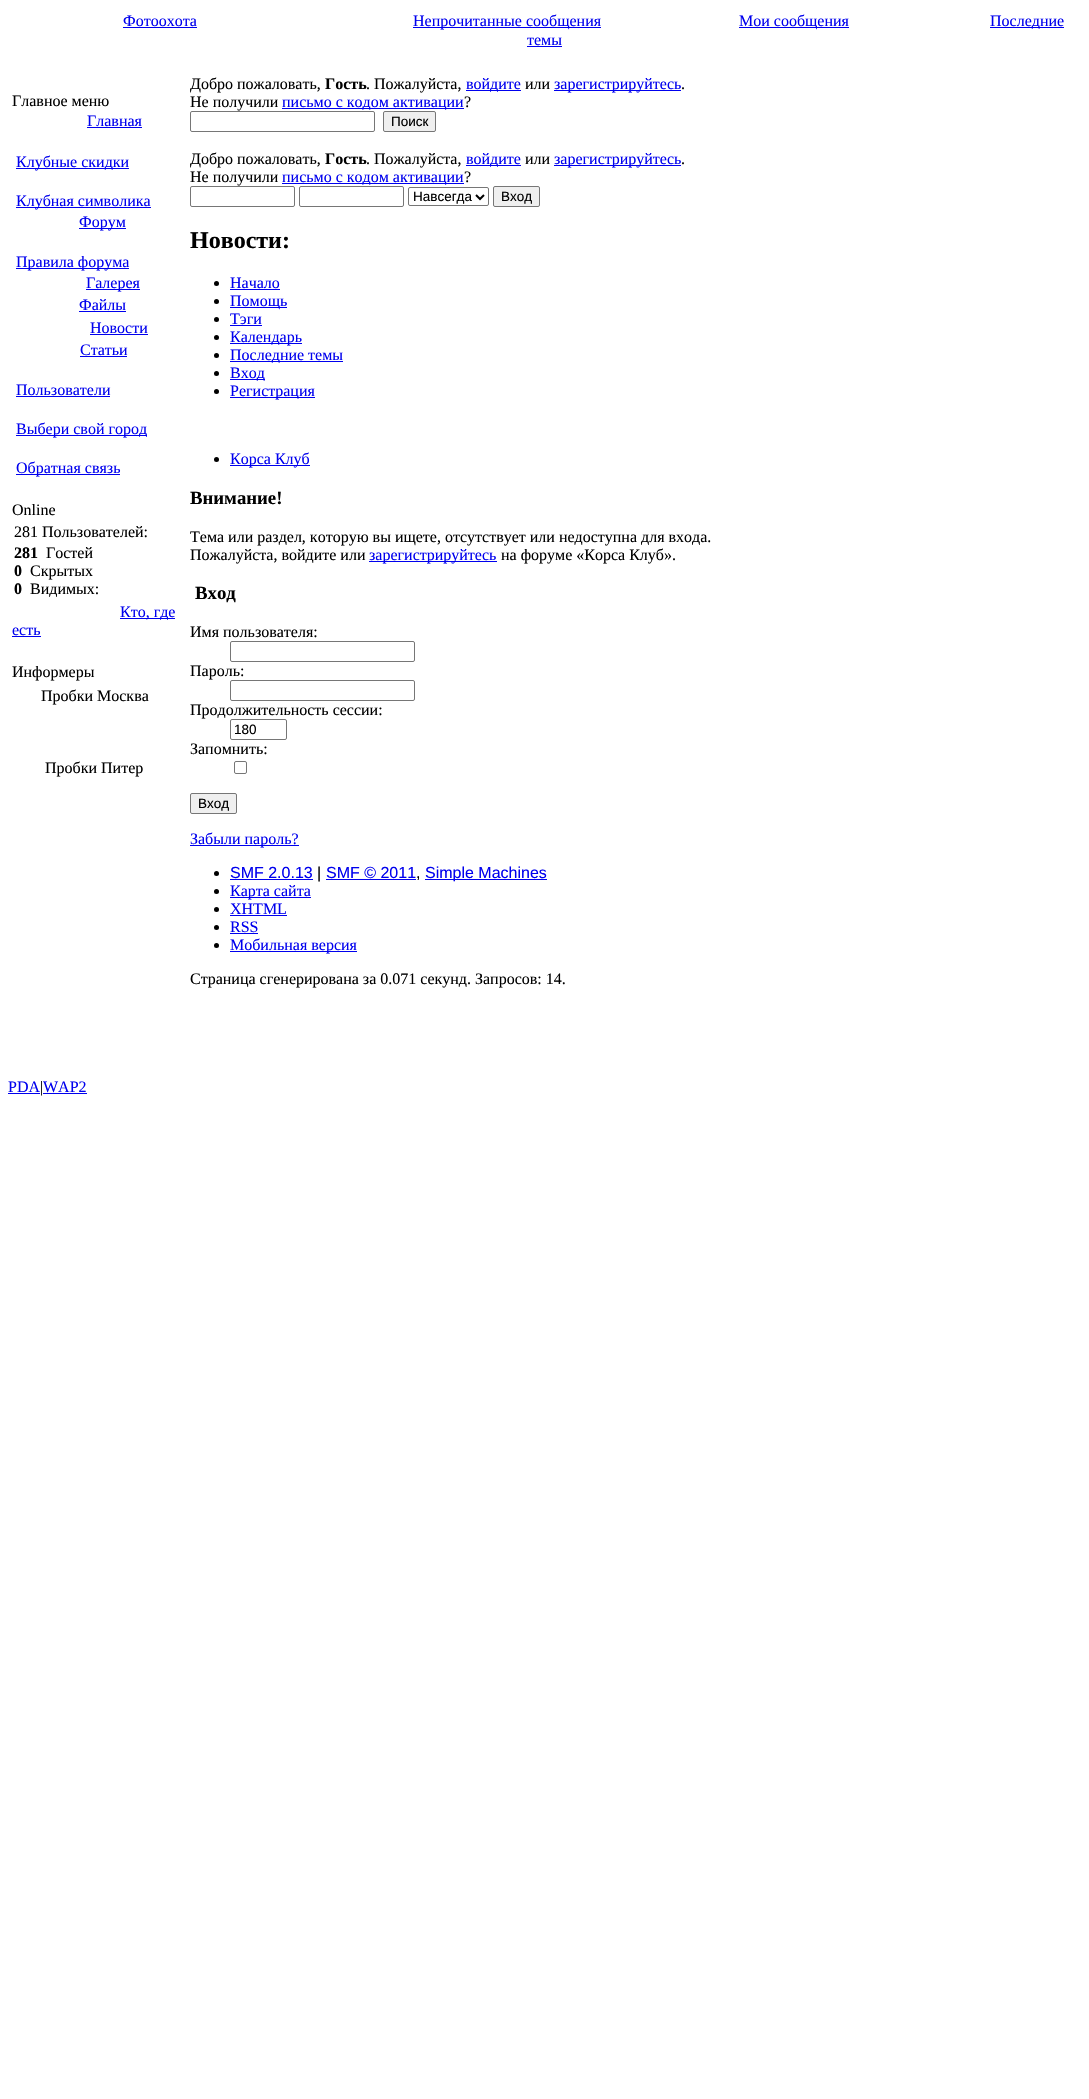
void draw(SkCanvas* canvas) {
	SkPaint paint;
	paint.setAntiAlias(true);
	auto svgPath = [&](const char* data, bool evenOdd = false) {
		SkPath result = *SkParsePath::FromSVGString(data);
		if (evenOdd) result.setFillType(SkPathFillType::kEvenOdd);
		return result;
	};
	canvas->clear(0xffffffff);
	SkFont f1(fontMgr->matchFamilyStyle("Liberation Serif", SkFontStyle::Normal()), 16);
	f1.setSubpixel(true);
	paint.setColor(0xff0000ee);
	canvas->drawString("Фотоохота", 123, 26, f1, paint);
	canvas->drawRect(SkRect::MakeXYWH(123, 27, 74, 1), paint);
	canvas->drawRect(SkRect::MakeXYWH(413, 27, 188, 1), paint);
	canvas->drawString("Непрочитанные сообщения", 413, 26, f1, paint);
	canvas->drawRect(SkRect::MakeXYWH(739, 27, 110, 1), paint);
	canvas->drawString("Мои сообщения", 739, 26, f1, paint);
	canvas->drawRect(SkRect::MakeXYWH(990, 27, 74, 1), paint);
	canvas->drawString("Последние", 990, 26, f1, paint);
	canvas->drawString("темы", 527, 45, f1, paint);
	canvas->drawRect(SkRect::MakeXYWH(527, 46, 35, 1), paint);
	paint.setColor(0xff000000);
	canvas->drawString("Главное меню", 12, 106, f1, paint);
	paint.setColor(0xff0000ee);
	canvas->drawString("Главная", 87, 126, f1, paint);
	canvas->drawRect(SkRect::MakeXYWH(87, 127, 55, 1), paint);
	canvas->drawRect(SkRect::MakeXYWH(16, 168, 113, 1), paint);
	canvas->drawString("Клубные скидки", 16, 167, f1, paint);
	canvas->drawRect(SkRect::MakeXYWH(16, 207, 135, 1), paint);
	canvas->drawString("Клубная символика", 16, 206, f1, paint);
	canvas->drawRect(SkRect::MakeXYWH(79, 228, 47, 1), paint);
	canvas->drawString("Форум", 79, 227, f1, paint);
	canvas->drawRect(SkRect::MakeXYWH(16, 268, 113, 1), paint);
	canvas->drawString("Правила форума", 16, 267, f1, paint);
	canvas->drawRect(SkRect::MakeXYWH(86, 289, 54, 1), paint);
	canvas->drawString("Галерея", 86, 288, f1, paint);
	canvas->drawString("Файлы", 79, 310, f1, paint);
	canvas->drawRect(SkRect::MakeXYWH(79, 311, 47, 1), paint);
	canvas->drawString("Новости", 90, 333, f1, paint);
	canvas->drawRect(SkRect::MakeXYWH(90, 334, 58, 1), paint);
	canvas->drawString("Статьи", 80, 355, f1, paint);
	canvas->drawRect(SkRect::MakeXYWH(80, 356, 47, 1), paint);
	canvas->drawString("Пользователи", 16, 395, f1, paint);
	canvas->drawRect(SkRect::MakeXYWH(16, 396, 94, 1), paint);
	canvas->drawRect(SkRect::MakeXYWH(16, 435, 131, 1), paint);
	canvas->drawString("Выбери свой город", 16, 434, f1, paint);
	canvas->drawRect(SkRect::MakeXYWH(16, 474, 104, 1), paint);
	canvas->drawString("Обратная связь", 16, 473, f1, paint);
	paint.setColor(0xff000000);
	canvas->drawString("Online", 12, 515, f1, paint);
	canvas->drawString("281 Пользователей:", 14, 537, f1, paint);
	SkFont f2(fontMgr->matchFamilyStyle("Liberation Serif", SkFontStyle::Bold()), 16);
	f2.setSubpixel(true);
	canvas->drawString("281", 14, 558, f2, paint);
	canvas->drawString("Гостей", 46, 558, f1, paint);
	canvas->drawString("0", 14, 576, f2, paint);
	canvas->drawString("Скрытых", 30, 576, f1, paint);
	canvas->drawString("0", 14, 594, f2, paint);
	canvas->drawString("Видимых:", 30, 594, f1, paint);
	paint.setColor(0xff0000ee);
	canvas->drawRect(SkRect::MakeXYWH(120, 618, 55, 1), paint);
	canvas->drawString("Кто, где", 120, 617, f1, paint);
	canvas->drawString("есть", 12, 635, f1, paint);
	canvas->drawRect(SkRect::MakeXYWH(12, 636, 29, 1), paint);
	paint.setColor(0xff000000);
	canvas->drawString("Информеры", 12, 677, f1, paint);
	canvas->drawString("Пробки Mосква", 41, 701, f1, paint);
	canvas->drawString("Пробки Питер", 45, 773, f1, paint);
	canvas->drawString("Добро пожаловать,", 190, 89, f1, paint);
	canvas->drawString("Гость", 325, 89, f2, paint);
	canvas->drawString(". Пожалуйста,", 366, 89, f1, paint);
	paint.setColor(0xff0000ee);
	canvas->drawRect(SkRect::MakeXYWH(466, 90, 55, 1), paint);
	canvas->drawString("войдите", 466, 89, f1, paint);
	paint.setColor(0xff000000);
	canvas->drawString("или", 525, 89, f1, paint);
	paint.setColor(0xff0000ee);
	canvas->drawRect(SkRect::MakeXYWH(554, 90, 127, 1), paint);
	canvas->drawString("зарегистрируйтесь", 554, 89, f1, paint);
	paint.setColor(0xff000000);
	canvas->drawString(".", 681, 89, f1, paint);
	canvas->drawString("Не получили", 190, 107, f1, paint);
	paint.setColor(0xff0000ee);
	canvas->drawRect(SkRect::MakeXYWH(282, 108, 182, 1), paint);
	canvas->drawString("письмо с кодом активации", 282, 107, f1, paint);
	paint.setColor(0xff000000);
	canvas->drawString("?", 464, 107, f1, paint);
	paint.setStroke(true);
	paint.setStrokeWidth(1);
	paint.setColor(0xff767676);
	canvas->drawRoundRect(SkRect::MakeXYWH(190.5, 111.5, 184, 20), 1.5, 1.5, paint);
	paint.setStroke(false);
	paint.setColor(0xffefefef);
	canvas->drawRoundRect(SkRect::MakeXYWH(383.5, 111.5, 52, 20), 1.5, 1.5, paint);
	paint.setStroke(true);
	paint.setColor(0xff767676);
	canvas->drawRoundRect(SkRect::MakeXYWH(383.5, 111.5, 52, 20), 1.5, 1.5, paint);
	SkFont f3(fontMgr->matchFamilyStyle("Liberation Sans", SkFontStyle::Normal()), 13.5);
	f3.setSubpixel(true);
	paint.setStroke(false);
	paint.setColor(0xff000000);
	canvas->drawString("Поиск", 391, 126, f3, paint);
	canvas->drawString("Добро пожаловать,", 190, 164, f1, paint);
	canvas->drawString("Гость", 325, 164, f2, paint);
	canvas->drawString(". Пожалуйста,", 366, 164, f1, paint);
	paint.setColor(0xff0000ee);
	canvas->drawRect(SkRect::MakeXYWH(466, 165, 55, 1), paint);
	canvas->drawString("войдите", 466, 164, f1, paint);
	paint.setColor(0xff000000);
	canvas->drawString("или", 525, 164, f1, paint);
	paint.setColor(0xff0000ee);
	canvas->drawRect(SkRect::MakeXYWH(554, 165, 127, 1), paint);
	canvas->drawString("зарегистрируйтесь", 554, 164, f1, paint);
	paint.setColor(0xff000000);
	canvas->drawString(".", 681, 164, f1, paint);
	canvas->drawString("Не получили", 190, 182, f1, paint);
	paint.setColor(0xff0000ee);
	canvas->drawRect(SkRect::MakeXYWH(282, 183, 182, 1), paint);
	canvas->drawString("письмо с кодом активации", 282, 182, f1, paint);
	paint.setColor(0xff000000);
	canvas->drawString("?", 464, 182, f1, paint);
	paint.setStroke(true);
	paint.setColor(0xff767676);
	canvas->drawRoundRect(SkRect::MakeXYWH(190.5, 186.5, 104, 20), 1.5, 1.5, paint);
	canvas->drawRoundRect(SkRect::MakeXYWH(299.5, 186.5, 104, 20), 1.5, 1.5, paint);
	canvas->drawRoundRect(SkRect::MakeXYWH(408.5, 187.5, 80, 18), 1.5, 1.5, paint);
	paint.setStrokeWidth(2);
	paint.setColor(0xff000000);
	canvas->drawPath(svgPath("M476 195L480 199L484 195"), paint);
	paint.setStroke(false);
	canvas->drawString("Навсегда", 413, 201, f3, paint);
	paint.setColor(0xffefefef);
	canvas->drawRoundRect(SkRect::MakeXYWH(493.5, 186.5, 46, 20), 1.5, 1.5, paint);
	paint.setStroke(true);
	paint.setStrokeWidth(1);
	paint.setColor(0xff767676);
	canvas->drawRoundRect(SkRect::MakeXYWH(493.5, 186.5, 46, 20), 1.5, 1.5, paint);
	paint.setStroke(false);
	paint.setColor(0xff000000);
	canvas->drawString("Вход", 501, 201, f3, paint);
	SkFont f4(fontMgr->matchFamilyStyle("Liberation Serif", SkFontStyle::Bold()), 24);
	f4.setSubpixel(true);
	canvas->drawString("Новости:", 190, 248, f4, paint);
	canvas->drawCircle(216.5, 283.5, 2.5, paint);
	paint.setColor(0xff0000ee);
	canvas->drawString("Начало", 230, 288, f1, paint);
	canvas->drawRect(SkRect::MakeXYWH(230, 289, 50, 1), paint);
	paint.setColor(0xff000000);
	canvas->drawCircle(216.5, 301.5, 2.5, paint);
	paint.setColor(0xff0000ee);
	canvas->drawRect(SkRect::MakeXYWH(230, 307, 57, 1), paint);
	canvas->drawString("Помощь", 230, 306, f1, paint);
	paint.setColor(0xff000000);
	canvas->drawCircle(216.5, 319.5, 2.5, paint);
	paint.setColor(0xff0000ee);
	canvas->drawString("Тэги", 230, 324, f1, paint);
	canvas->drawRect(SkRect::MakeXYWH(230, 325, 32, 1), paint);
	paint.setColor(0xff000000);
	canvas->drawCircle(216.5, 337.5, 2.5, paint);
	paint.setColor(0xff0000ee);
	canvas->drawRect(SkRect::MakeXYWH(230, 343, 72, 1), paint);
	canvas->drawString("Календарь", 230, 342, f1, paint);
	paint.setColor(0xff000000);
	canvas->drawCircle(216.5, 355.5, 2.5, paint);
	paint.setColor(0xff0000ee);
	canvas->drawRect(SkRect::MakeXYWH(230, 361, 113, 1), paint);
	canvas->drawString("Последние темы", 230, 360, f1, paint);
	paint.setColor(0xff000000);
	canvas->drawCircle(216.5, 373.5, 2.5, paint);
	paint.setColor(0xff0000ee);
	canvas->drawRect(SkRect::MakeXYWH(230, 379, 35, 1), paint);
	canvas->drawString("Вход", 230, 378, f1, paint);
	paint.setColor(0xff000000);
	canvas->drawCircle(216.5, 391.5, 2.5, paint);
	paint.setColor(0xff0000ee);
	canvas->drawRect(SkRect::MakeXYWH(230, 397, 85, 1), paint);
	canvas->drawString("Регистрация", 230, 396, f1, paint);
	paint.setColor(0xff000000);
	canvas->drawCircle(216.5, 459.5, 2.5, paint);
	paint.setColor(0xff0000ee);
	canvas->drawRect(SkRect::MakeXYWH(230, 465, 80, 1), paint);
	canvas->drawString("Корса Клуб", 230, 464, f1, paint);
	SkFont f5(fontMgr->matchFamilyStyle("Liberation Serif", SkFontStyle::Bold()), 18.75);
	f5.setSubpixel(true);
	paint.setColor(0xff000000);
	canvas->drawString("Внимание!", 190, 504, f5, paint);
	canvas->drawString("Тема или раздел, которую вы ищете, отсутствует или недоступна для входа.", 190, 542, f1, paint);
	canvas->drawString("Пожалуйста, войдите или", 190, 560, f1, paint);
	paint.setColor(0xff0000ee);
	canvas->drawRect(SkRect::MakeXYWH(369, 561, 128, 1), paint);
	canvas->drawString("зарегистрируйтесь", 369, 560, f1, paint);
	paint.setColor(0xff000000);
	canvas->drawString("на форуме «Корса Клуб».", 501, 560, f1, paint);
	canvas->drawString("Вход", 195, 599, f5, paint);
	canvas->drawString("Имя пользователя:", 190, 637, f1, paint);
	paint.setStroke(true);
	paint.setColor(0xff767676);
	canvas->drawRoundRect(SkRect::MakeXYWH(230.5, 641.5, 184, 20), 1.5, 1.5, paint);
	paint.setStroke(false);
	paint.setColor(0xff000000);
	canvas->drawString("Пароль:", 190, 676, f1, paint);
	paint.setStroke(true);
	paint.setColor(0xff767676);
	canvas->drawRoundRect(SkRect::MakeXYWH(230.5, 680.5, 184, 20), 1.5, 1.5, paint);
	paint.setStroke(false);
	paint.setColor(0xff000000);
	canvas->drawString("Продолжительность сессии:", 190, 715, f1, paint);
	paint.setStroke(true);
	paint.setColor(0xff767676);
	canvas->drawRoundRect(SkRect::MakeXYWH(230.5, 719.5, 56, 20), 1.5, 1.5, paint);
	paint.setStroke(false);
	paint.setColor(0xff000000);
	canvas->drawString("180", 234, 734, f3, paint);
	canvas->drawString("Запомнить:", 190, 754, f1, paint);
	paint.setStroke(true);
	paint.setColor(0xff767676);
	canvas->drawRoundRect(SkRect::MakeXYWH(234.5, 761.5, 12, 12), 1.5, 1.5, paint);
	paint.setStroke(false);
	paint.setColor(0xffefefef);
	canvas->drawRoundRect(SkRect::MakeXYWH(190.5, 793.5, 46, 20), 1.5, 1.5, paint);
	paint.setStroke(true);
	paint.setColor(0xff767676);
	canvas->drawRoundRect(SkRect::MakeXYWH(190.5, 793.5, 46, 20), 1.5, 1.5, paint);
	paint.setStroke(false);
	paint.setColor(0xff000000);
	canvas->drawString("Вход", 198, 808, f3, paint);
	paint.setColor(0xff0000ee);
	canvas->drawRect(SkRect::MakeXYWH(190, 845, 109, 1), paint);
	canvas->drawString("Забыли пароль?", 190, 844, f1, paint);
	paint.setColor(0xff000000);
	canvas->drawCircle(216.5, 873.5, 2.5, paint);
	SkFont f6(fontMgr->matchFamilyStyle("Liberation Sans", SkFontStyle::Normal()), 16);
	f6.setSubpixel(true);
	paint.setColor(0xff0000ee);
	canvas->drawString("SMF 2.0.13", 230, 878, f6, paint);
	canvas->drawRect(SkRect::MakeXYWH(230, 879, 83, 1), paint);
	paint.setColor(0xff000000);
	canvas->drawString("|", 317, 878, f6, paint);
	paint.setColor(0xff0000ee);
	canvas->drawString("SMF © 2011", 326, 878, f6, paint);
	canvas->drawRect(SkRect::MakeXYWH(425, 879, 122, 1), paint);
	canvas->drawString("Simple Machines", 425, 878, f6, paint);
	paint.setColor(0xff000000);
	canvas->drawString(",", 416, 878, f6, paint);
	paint.setColor(0xff0000ee);
	canvas->drawRect(SkRect::MakeXYWH(326, 879, 90, 1), paint);
	paint.setColor(0xff000000);
	canvas->drawCircle(216.5, 891.5, 2.5, paint);
	paint.setColor(0xff0000ee);
	canvas->drawRect(SkRect::MakeXYWH(230, 897, 81, 1), paint);
	canvas->drawString("Карта сайта", 230, 896, f1, paint);
	paint.setColor(0xff000000);
	canvas->drawCircle(216.5, 909.5, 2.5, paint);
	paint.setColor(0xff0000ee);
	canvas->drawString("XHTML", 230, 914, f1, paint);
	canvas->drawRect(SkRect::MakeXYWH(230, 915, 57, 1), paint);
	paint.setColor(0xff000000);
	canvas->drawCircle(216.5, 927.5, 2.5, paint);
	paint.setColor(0xff0000ee);
	canvas->drawString("RSS", 230, 932, f1, paint);
	canvas->drawRect(SkRect::MakeXYWH(230, 933, 28, 1), paint);
	paint.setColor(0xff000000);
	canvas->drawCircle(216.5, 945.5, 2.5, paint);
	paint.setColor(0xff0000ee);
	canvas->drawRect(SkRect::MakeXYWH(230, 951, 127, 1), paint);
	canvas->drawString("Мобильная версия", 230, 950, f1, paint);
	paint.setColor(0xff000000);
	canvas->drawString("Страница сгенерирована за 0.071 секунд. Запросов: 14.", 190, 984, f1, paint);
	paint.setColor(0xff0000ee);
	canvas->drawString("PDA", 8, 1092, f1, paint);
	canvas->drawRect(SkRect::MakeXYWH(8, 1093, 32, 1), paint);
	paint.setColor(0xff000000);
	canvas->drawString("|", 40, 1092, f1, paint);
	paint.setColor(0xff0000ee);
	canvas->drawString("WAP2", 43, 1092, f1, paint);
	canvas->drawRect(SkRect::MakeXYWH(43, 1093, 44, 1), paint);
}
